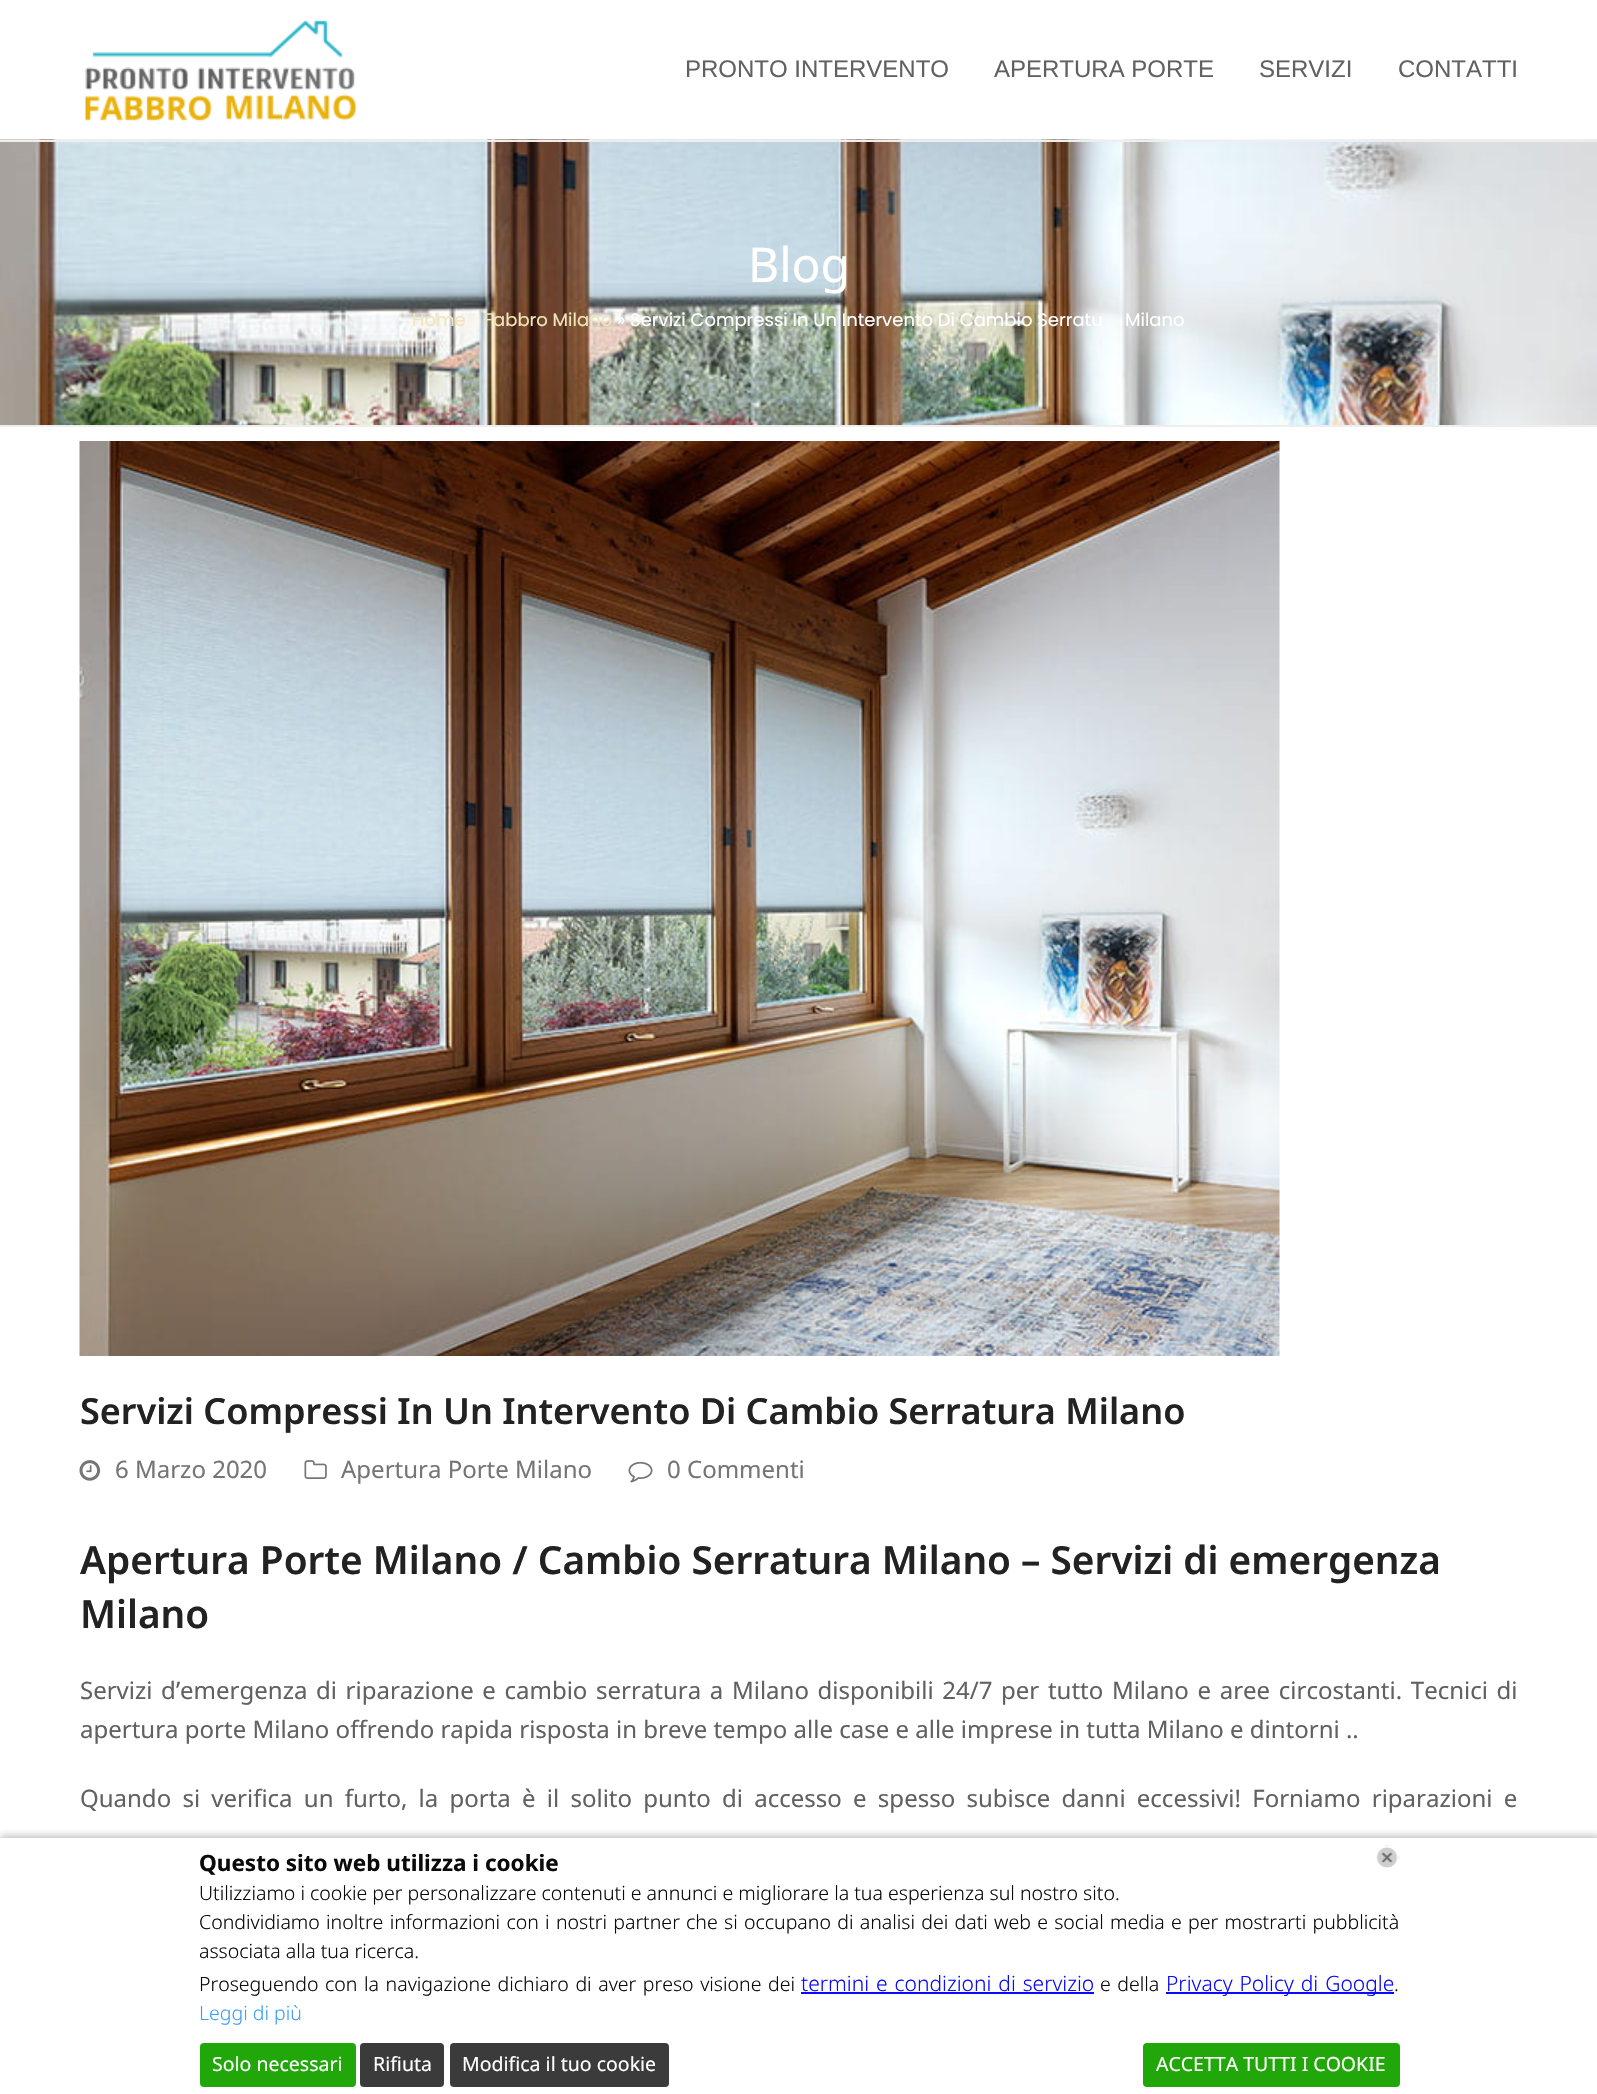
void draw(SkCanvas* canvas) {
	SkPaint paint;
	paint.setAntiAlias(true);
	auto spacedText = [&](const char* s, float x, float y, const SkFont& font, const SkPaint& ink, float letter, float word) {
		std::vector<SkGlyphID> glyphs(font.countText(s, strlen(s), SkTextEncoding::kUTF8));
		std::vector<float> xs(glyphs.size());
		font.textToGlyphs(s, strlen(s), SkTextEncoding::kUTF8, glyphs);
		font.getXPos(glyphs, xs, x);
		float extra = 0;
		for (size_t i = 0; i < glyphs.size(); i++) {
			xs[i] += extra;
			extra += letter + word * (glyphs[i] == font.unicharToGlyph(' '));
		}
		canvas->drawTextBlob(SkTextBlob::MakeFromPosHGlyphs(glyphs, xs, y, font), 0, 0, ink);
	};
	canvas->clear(0xffffffff);
	canvas->drawImageRect(SkImages::DeferredFromEncodedData(SkData::MakeFromFileName("img1.png")), SkRect::MakeXYWH(85, 20, 271, 101), SkSamplingOptions());
	SkFont f1(fontMgr->matchFamilyStyle("Liberation Sans", SkFontStyle::Normal()), 24);
	f1.setSubpixel(true);
	paint.setColor(0xff616161);
	canvas->drawString("PRONTO INTERVENTO", 685, 77, f1, paint);
	canvas->drawString("APERTURA PORTE", 994, 77, f1, paint);
	canvas->drawString("SERVIZI", 1259, 77, f1, paint);
	canvas->drawString("CONTATTI", 1398, 77, f1, paint);
	canvas->drawImageRect(SkImages::DeferredFromEncodedData(SkData::MakeFromFileName("img2.png")), SkRect::MakeXYWH(0, 139, 1597, 286), SkSamplingOptions());
	paint.setColor(0xffeeeeee);
	canvas->drawRect(SkRect::MakeXYWH(0, 140, 1597, 2), paint);
	canvas->drawRect(SkRect::MakeXYWH(0, 425, 1597, 2), paint);
	SkFont f2(fontMgr->matchFamilyStyle("Noto Sans", SkFontStyle::Normal()), 48);
	f2.setSubpixel(true);
	paint.setColor(0xffffffff);
	canvas->drawString("Blog", 748, 282, f2, paint);
	SkFont f3(fontMgr->matchFamilyStyle("Poppins", SkFontStyle::Normal()), 18);
	f3.setSubpixel(true);
	paint.setColor(0xfff2e5b8);
	canvas->drawString("Home", 412, 326, f3, paint);
	canvas->drawString("Fabbro Milano", 484, 326, f3, paint);
	paint.setColor(0xffffffff);
	canvas->drawString("» Servizi Compressi In Un Intervento Di Cambio Serratu", 617, 326, f3, paint);
	canvas->drawString("Milano", 1125, 326, f3, paint);
	canvas->drawImageRect(SkImages::DeferredFromEncodedData(SkData::MakeFromFileName("img3.png")), SkRect::MakeXYWH(79, 441, 1201, 915), SkSamplingOptions());
	SkFont f4(fontMgr->matchFamilyStyle("Noto Sans", SkFontStyle(600, SkFontStyle::kNormal_Width, SkFontStyle::kUpright_Slant)), 36);
	f4.setSubpixel(true);
	paint.setColor(0xff222222);
	canvas->drawString("Servizi Compressi In Un Intervento Di Cambio Serratura Milano", 80, 1424, f4, paint);
	canvas->drawImageRect(SkImages::DeferredFromEncodedData(SkData::MakeFromFileName("img4.png")), SkRect::MakeXYWH(79, 1460, 22, 21), SkSamplingOptions());
	SkFont f5(fontMgr->matchFamilyStyle("Noto Sans", SkFontStyle::Normal()), 24);
	f5.setSubpixel(true);
	paint.setColor(0xff757575);
	canvas->drawString("6 Marzo 2020", 115, 1478, f5, paint);
	canvas->drawImageRect(SkImages::DeferredFromEncodedData(SkData::MakeFromFileName("img5.png")), SkRect::MakeXYWH(304, 1460, 23, 19), SkSamplingOptions());
	canvas->drawString("Apertura Porte Milano", 341, 1478, f5, paint);
	canvas->drawImageRect(SkImages::DeferredFromEncodedData(SkData::MakeFromFileName("img6.png")), SkRect::MakeXYWH(628, 1461, 25, 22), SkSamplingOptions());
	canvas->drawString("0 Commenti", 667, 1478, f5, paint);
	SkFont f6(fontMgr->matchFamilyStyle("Noto Sans", SkFontStyle(600, SkFontStyle::kNormal_Width, SkFontStyle::kUpright_Slant)), 38.75);
	f6.setSubpixel(true);
	paint.setColor(0xff222222);
	canvas->drawString("Apertura Porte Milano / Cambio Serratura Milano – Servizi di emergenza", 80, 1574, f6, paint);
	canvas->drawString("Milano", 80, 1628, f6, paint);
	paint.setColor(0xff616161);
	spacedText("Servizi d’emergenza di riparazione e cambio serratura a Milano disponibili 24/7 per tutto Milano e aree circostanti. Tecnici di", 80, 1699, f5, paint, 0, 2.4);
	canvas->drawString("apertura porte Milano offrendo rapida risposta in breve tempo alle case e alle imprese in tutta Milano e dintorni ..", 80, 1738, f5, paint);
	spacedText("Quando si verifica un furto, la porta è il solito punto di accesso e spesso subisce danni eccessivi! Forniamo riparazioni e", 80, 1807, f5, paint, 0, 5);
	canvas->save();
	canvas->clipRect(SkRect::MakeXYWH(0, 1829, 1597, 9));
	paint.setColor(0x948e8e8e);
	paint.setMaskFilter(SkMaskFilter::MakeBlur(kNormal_SkBlurStyle, 4));
	canvas->drawRect(SkRect::MakeXYWH(0, 1836, 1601, 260), paint);
	paint.setMaskFilter(nullptr);
	canvas->restore();
	canvas->drawImageRect(SkImages::DeferredFromEncodedData(SkData::MakeFromFileName("img7.png")), SkRect::MakeXYWH(1376, 1845, 24, 26), SkSamplingOptions());
	SkFont f7(fontMgr->matchFamilyStyle("Noto Sans", SkFontStyle::Bold()), 22.5);
	f7.setSubpixel(true);
	paint.setColor(0xff0a0a0a);
	canvas->drawString("Questo sito web utilizza i cookie", 199, 1871, f7, paint);
	SkFont f8(fontMgr->matchFamilyStyle("Noto Sans", SkFontStyle(300, SkFontStyle::kNormal_Width, SkFontStyle::kUpright_Slant)), 19.5);
	f8.setSubpixel(true);
	canvas->drawString("Utilizziamo i cookie per personalizzare contenuti e annunci e migliorare la tua esperienza sul nostro sito.", 199, 1900, f8, paint);
	spacedText("Condividiamo inoltre informazioni con i nostri partner che si occupano di analisi dei dati web e social media e per mostrarti pubblicità", 199, 1929, f8, paint, 0, 1.2);
	canvas->drawString("associata alla tua ricerca.", 199, 1958, f8, paint);
	spacedText("Proseguendo con la navigazione dichiaro di aver preso visione dei", 199, 1991, f8, paint, 0, 1.5);
	SkFont f9(fontMgr->matchFamilyStyle("Noto Sans", SkFontStyle(300, SkFontStyle::kNormal_Width, SkFontStyle::kUpright_Slant)), 21);
	f9.setSubpixel(true);
	paint.setColor(0xff0a0aff);
	spacedText("termini e condizioni di servizio", 801, 1991, f9, paint, 0, 1.5);
	paint.setColor(0xf50000ff);
	canvas->drawRect(SkRect::MakeXYWH(801, 1992, 293, 2), paint);
	paint.setColor(0xff0a0a0a);
	spacedText("e della", 1100, 1991, f8, paint, 0, 1.5);
	paint.setColor(0xff0a0aff);
	canvas->drawRect(SkRect::MakeXYWH(1166, 1992, 228, 2), paint);
	spacedText("Privacy Policy di Google", 1166, 1991, f9, paint, 0, 1.5);
	paint.setColor(0xff0a0a0a);
	canvas->drawString(".", 1394, 1991, f8, paint);
	paint.setColor(0xff3d9ff5);
	canvas->drawString("Leggi di più", 199, 2020, f8, paint);
	paint.setColor(0xf518a300);
	canvas->drawRoundRect(SkRect::MakeXYWH(200, 2043, 156, 44), 4, 4, paint);
	SkFont f10(fontMgr->matchFamilyStyle("Noto Sans", SkFontStyle::Normal()), 19.5);
	f10.setSubpixel(true);
	paint.setColor(0xffffffff);
	canvas->drawString("Solo necessari", 212, 2071, f10, paint);
	paint.setColor(0xff3b3b3b);
	canvas->drawRoundRect(SkRect::MakeXYWH(360, 2043, 84, 44), 4, 4, paint);
	paint.setColor(0xffffffff);
	canvas->drawString("Rifiuta", 373, 2071, f10, paint);
	paint.setColor(0xff3b3b3b);
	canvas->drawRoundRect(SkRect::MakeXYWH(450, 2043, 219, 44), 4, 4, paint);
	paint.setColor(0xffffffff);
	canvas->drawString("Modifica il tuo cookie", 462, 2071, f10, paint);
	paint.setColor(0xff21a70a);
	canvas->drawRoundRect(SkRect::MakeXYWH(1143, 2043, 257, 44), 4, 4, paint);
	paint.setColor(0xffffffff);
	canvas->drawString("ACCETTA TUTTI I COOKIE", 1156, 2071, f10, paint);
}
